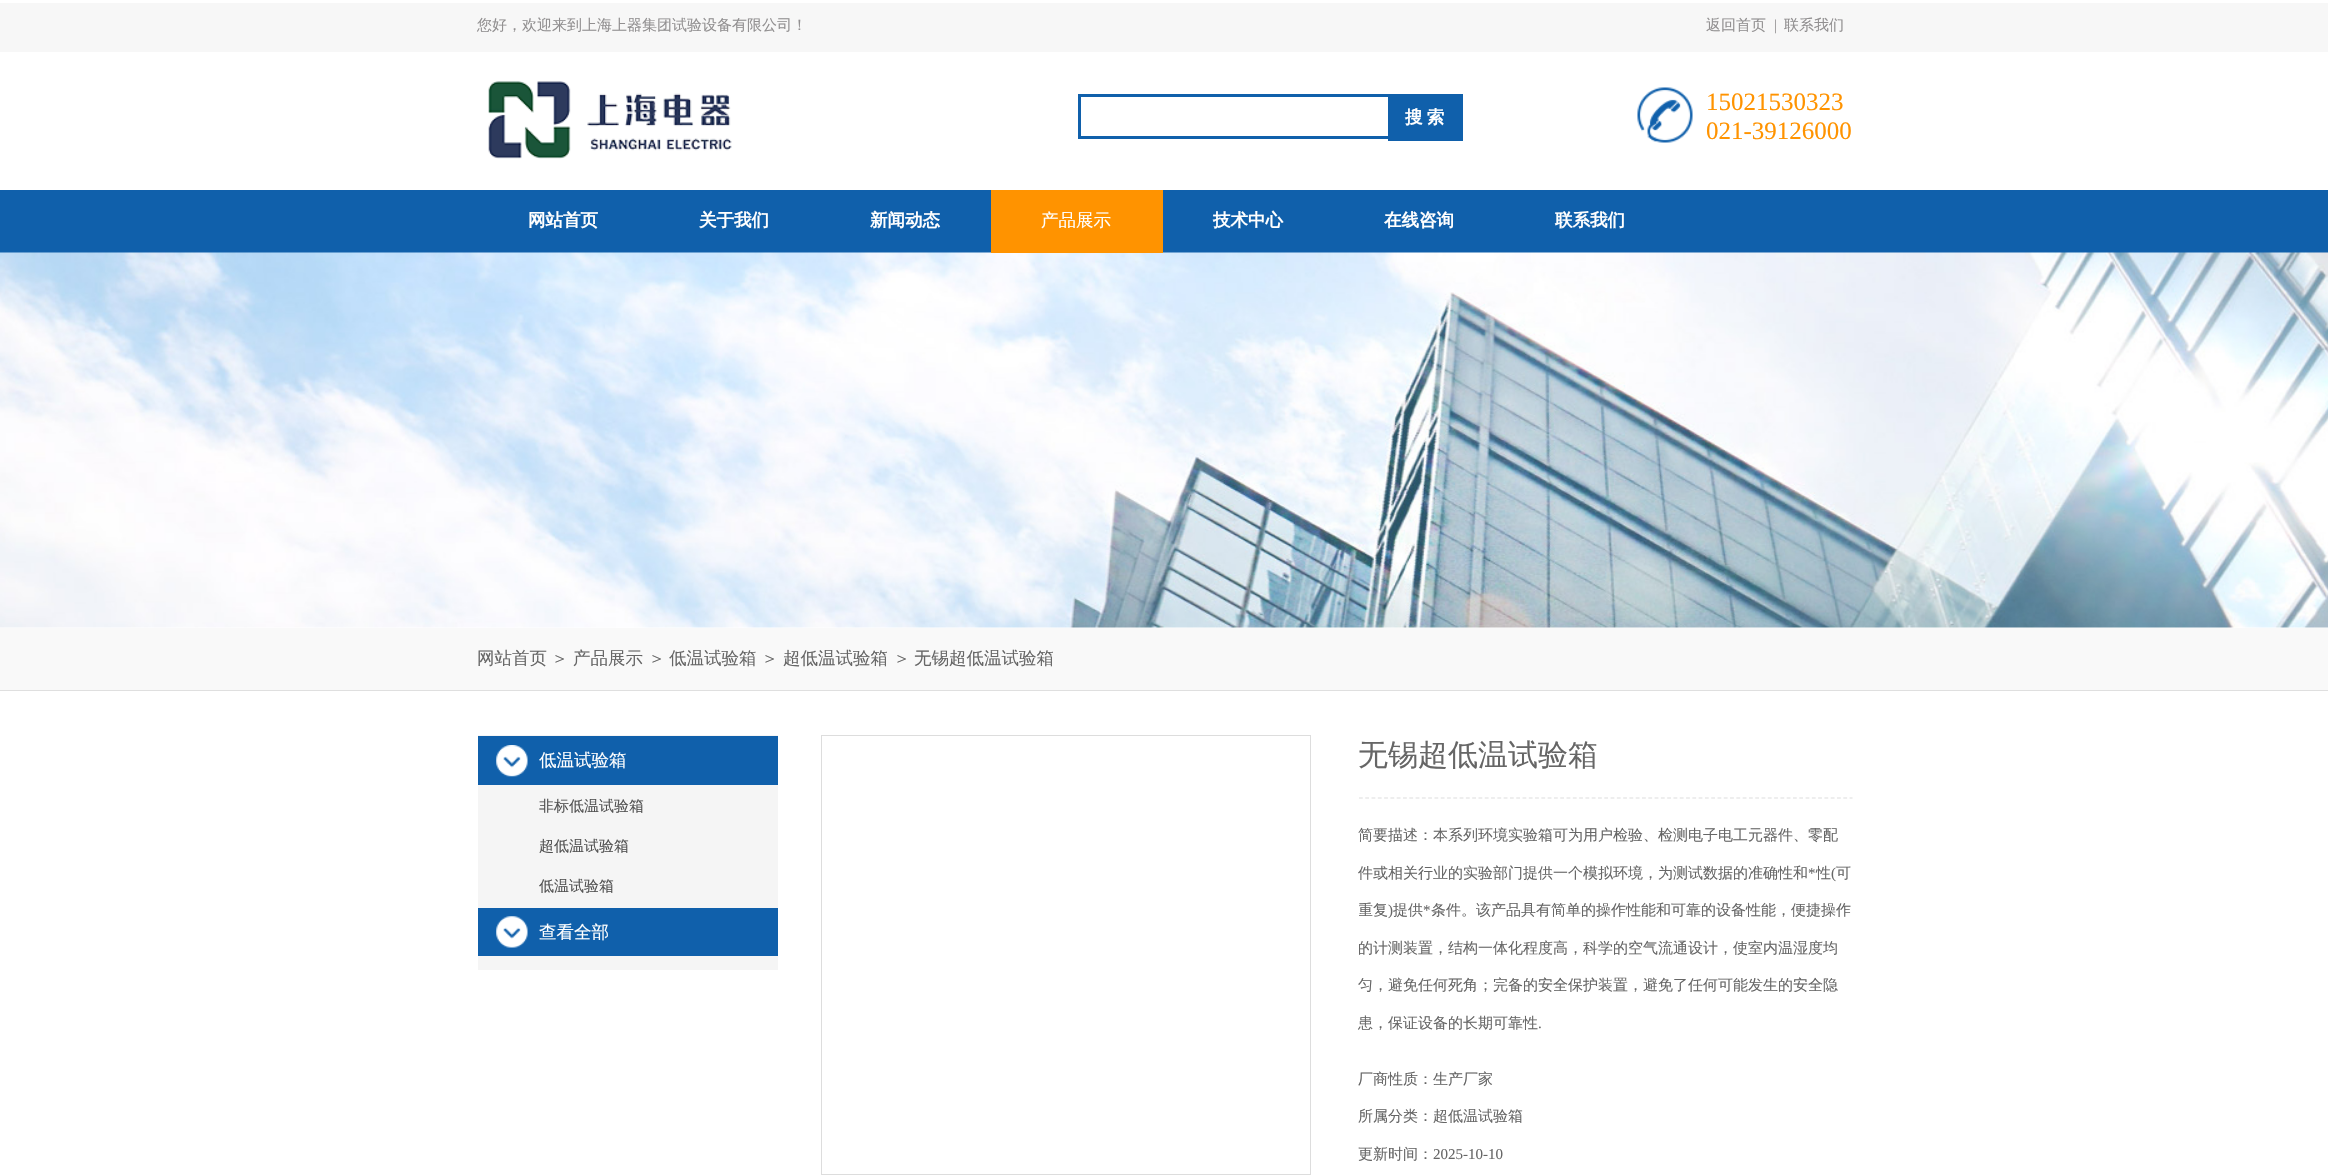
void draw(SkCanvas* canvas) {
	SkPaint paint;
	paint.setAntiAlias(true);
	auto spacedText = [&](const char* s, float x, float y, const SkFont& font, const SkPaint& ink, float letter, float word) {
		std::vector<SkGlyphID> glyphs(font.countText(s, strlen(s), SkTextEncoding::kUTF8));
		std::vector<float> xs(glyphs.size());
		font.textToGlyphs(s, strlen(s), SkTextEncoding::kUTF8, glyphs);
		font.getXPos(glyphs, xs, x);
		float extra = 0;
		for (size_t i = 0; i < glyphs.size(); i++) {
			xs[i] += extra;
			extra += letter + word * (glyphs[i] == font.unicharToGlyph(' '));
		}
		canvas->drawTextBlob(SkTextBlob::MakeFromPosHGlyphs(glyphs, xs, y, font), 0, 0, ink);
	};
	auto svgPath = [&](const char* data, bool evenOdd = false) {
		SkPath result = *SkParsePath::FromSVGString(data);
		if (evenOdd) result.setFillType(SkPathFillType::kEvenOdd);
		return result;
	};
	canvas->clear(0xffffffff);
	paint.setColor(0xfff7f7f7);
	canvas->drawRect(SkRect::MakeXYWH(0, 3, 2328, 49), paint);
	SkFont f1(fontMgr->matchFamilyStyle("WenQuanYi Zen Hei", SkFontStyle(500, SkFontStyle::kNormal_Width, SkFontStyle::kUpright_Slant)), 15);
	f1.setSubpixel(true);
	paint.setColor(0xff929091);
	canvas->drawString("您好，欢迎来到上海上器集团试验设备有限公司！", 477, 30, f1, paint);
	canvas->drawString("返回首页", 1706, 30, f1, paint);
	SkFont f2(fontMgr->matchFamilyStyle("Liberation Serif", SkFontStyle::Normal()), 15);
	f2.setSubpixel(true);
	canvas->drawString("|", 1774, 30, f2, paint);
	canvas->drawString("联系我们", 1784, 30, f1, paint);
	canvas->drawImageRect(SkImages::DeferredFromEncodedData(SkData::MakeFromFileName("img1.png")), SkRect::MakeXYWH(488, 81, 244, 78), SkSamplingOptions());
	paint.setColor(0xff1060ab);
	canvas->drawRect(SkRect::MakeXYWH(1078, 94, 310, 3), paint);
	canvas->drawRect(SkRect::MakeXYWH(1078, 136, 310, 3), paint);
	canvas->drawRect(SkRect::MakeXYWH(1078, 94, 3, 45), paint);
	canvas->drawRect(SkRect::MakeXYWH(1388, 94, 75, 47), paint);
	SkFont f3(fontMgr->matchFamilyStyle("WenQuanYi Zen Hei", SkFontStyle::Bold()), 17.5);
	f3.setSubpixel(true);
	paint.setColor(0xffffffff);
	spacedText("搜 索", 1405, 123, f3, paint, 0, -1);
	canvas->drawImageRect(SkImages::DeferredFromEncodedData(SkData::MakeFromFileName("img2.png")), SkRect::MakeXYWH(1637, 87, 56, 56), SkSamplingOptions());
	SkFont f4(fontMgr->matchFamilyStyle("Liberation Serif", SkFontStyle::Normal()), 25);
	f4.setSubpixel(true);
	paint.setColor(0xffff9300);
	canvas->drawString("15021530323", 1706, 110, f4, paint);
	canvas->drawString("021-39126000", 1706, 139, f4, paint);
	paint.setColor(0xff1060ab);
	canvas->drawRect(SkRect::MakeXYWH(0, 190, 2328, 63), paint);
	paint.setColor(0xffffffff);
	canvas->drawString("网站首页", 528, 226, f3, paint);
	canvas->drawString("关于我们", 699, 226, f3, paint);
	canvas->drawString("新闻动态", 870, 226, f3, paint);
	canvas->drawImageRect(SkImages::DeferredFromEncodedData(SkData::MakeFromFileName("img3.png")), SkRect::MakeXYWH(0, 252, 2328, 376), SkSamplingOptions());
	paint.setColor(0xffff9300);
	canvas->drawRect(SkRect::MakeXYWH(991, 190, 172, 63), paint);
	SkFont f5(fontMgr->matchFamilyStyle("WenQuanYi Zen Hei", SkFontStyle(500, SkFontStyle::kNormal_Width, SkFontStyle::kUpright_Slant)), 17.5);
	f5.setSubpixel(true);
	paint.setColor(0xffffffff);
	canvas->drawString("产品展示", 1041, 226, f5, paint);
	canvas->drawString("技术中心", 1213, 226, f3, paint);
	canvas->drawString("在线咨询", 1384, 226, f3, paint);
	canvas->drawString("联系我们", 1555, 226, f3, paint);
	paint.setColor(0xfff9f9f9);
	canvas->drawRect(SkRect::MakeXYWH(0, 628, 2328, 62), paint);
	paint.setColor(0xffdfdfdf);
	canvas->drawRect(SkRect::MakeXYWH(0, 690, 2328, 1), paint);
	paint.setColor(0xff666666);
	canvas->drawString("网站首页", 477, 664, f5, paint);
	canvas->drawString("＞", 551, 664, f5, paint);
	canvas->drawString("产品展示", 573, 664, f5, paint);
	canvas->drawString("＞", 648, 664, f5, paint);
	canvas->drawString("低温试验箱", 669, 664, f5, paint);
	canvas->drawString("＞", 761, 664, f5, paint);
	canvas->drawString("超低温试验箱", 783, 664, f5, paint);
	canvas->drawString("＞", 893, 664, f5, paint);
	canvas->drawString("无锡超低温试验箱", 914, 664, f5, paint);
	paint.setColor(0xfff5f5f5);
	canvas->drawRect(SkRect::MakeXYWH(478, 735, 300, 235), paint);
	paint.setColor(0xff1060ab);
	canvas->drawRect(SkRect::MakeXYWH(478, 736, 300, 49), paint);
	canvas->drawImageRect(SkImages::DeferredFromEncodedData(SkData::MakeFromFileName("img4.png")), SkRect::MakeXYWH(496, 745, 32, 32), SkSamplingOptions());
	paint.setColor(0xffffffff);
	canvas->drawString("低温试验箱", 539, 766, f5, paint);
	paint.setColor(0xff515151);
	canvas->drawString("非标低温试验箱", 539, 811, f1, paint);
	canvas->drawString("超低温试验箱", 539, 851, f1, paint);
	canvas->drawString("低温试验箱", 539, 891, f1, paint);
	paint.setColor(0xff1060ab);
	canvas->drawRect(SkRect::MakeXYWH(478, 908, 300, 48), paint);
	canvas->drawImageRect(SkImages::DeferredFromEncodedData(SkData::MakeFromFileName("img5.png")), SkRect::MakeXYWH(496, 916, 32, 32), SkSamplingOptions());
	paint.setColor(0xffffffff);
	canvas->drawString("查看全部", 539, 938, f5, paint);
	paint.setStroke(true);
	paint.setStrokeWidth(1);
	paint.setColor(0xffdddddd);
	canvas->drawRect(SkRect::MakeXYWH(821.5, 735.5, 489, 439), paint);
	paint.setStrokeWidth(1.2);
	paint.setPathEffect(SkDashPathEffect::Make({{3.75f, 2.54f}}, 0));
	canvas->drawPath(svgPath("M1359 798H1852.5"), paint);
	paint.setPathEffect(nullptr);
	SkFont f6(fontMgr->matchFamilyStyle("WenQuanYi Zen Hei", SkFontStyle(500, SkFontStyle::kNormal_Width, SkFontStyle::kUpright_Slant)), 30);
	f6.setSubpixel(true);
	paint.setStroke(false);
	paint.setColor(0xff666666);
	canvas->drawString("无锡超低温试验箱", 1358, 765, f6, paint);
	canvas->drawString("简要描述：本系列环境实验箱可为用户检验、检测电子电工元器件、零配", 1358, 840, f1, paint);
	canvas->drawString("件或相关行业的实验部门提供一个模拟环境，为测试数据的准确性和", 1358, 878, f1, paint);
	canvas->drawString("*", 1808, 878, f2, paint);
	canvas->drawString("性", 1816, 878, f1, paint);
	canvas->drawString("(", 1831, 878, f2, paint);
	canvas->drawString("可", 1836, 878, f1, paint);
	canvas->save();
	canvas->clipRect(SkRect::MakeXYWH(1359, 816, 494, 225));
	canvas->drawString("重复", 1358, 915, f1, paint);
	canvas->restore();
	canvas->drawString(")", 1388, 915, f2, paint);
	canvas->drawString("提供", 1393, 915, f1, paint);
	canvas->drawString("*", 1423, 915, f2, paint);
	canvas->drawString("条件。该产品具有简单的操作性能和可靠的设备性能，便捷操作", 1431, 915, f1, paint);
	canvas->drawString("的计测装置，结构一体化程度高，科学的空气流通设计，使室内温湿度均", 1358, 953, f1, paint);
	canvas->drawString("匀，避免任何死角；完备的安全保护装置，避免了任何可能发生的安全隐", 1358, 990, f1, paint);
	canvas->drawString("患，保证设备的长期可靠性", 1358, 1028, f1, paint);
	canvas->drawString(".", 1538, 1028, f2, paint);
	canvas->drawString("厂商性质：生产厂家", 1358, 1084, f1, paint);
	canvas->drawString("所属分类：超低温试验箱", 1358, 1121, f1, paint);
	canvas->drawString("更新时间：", 1358, 1159, f1, paint);
	canvas->drawString("2025-10-10", 1433, 1159, f2, paint);
}
